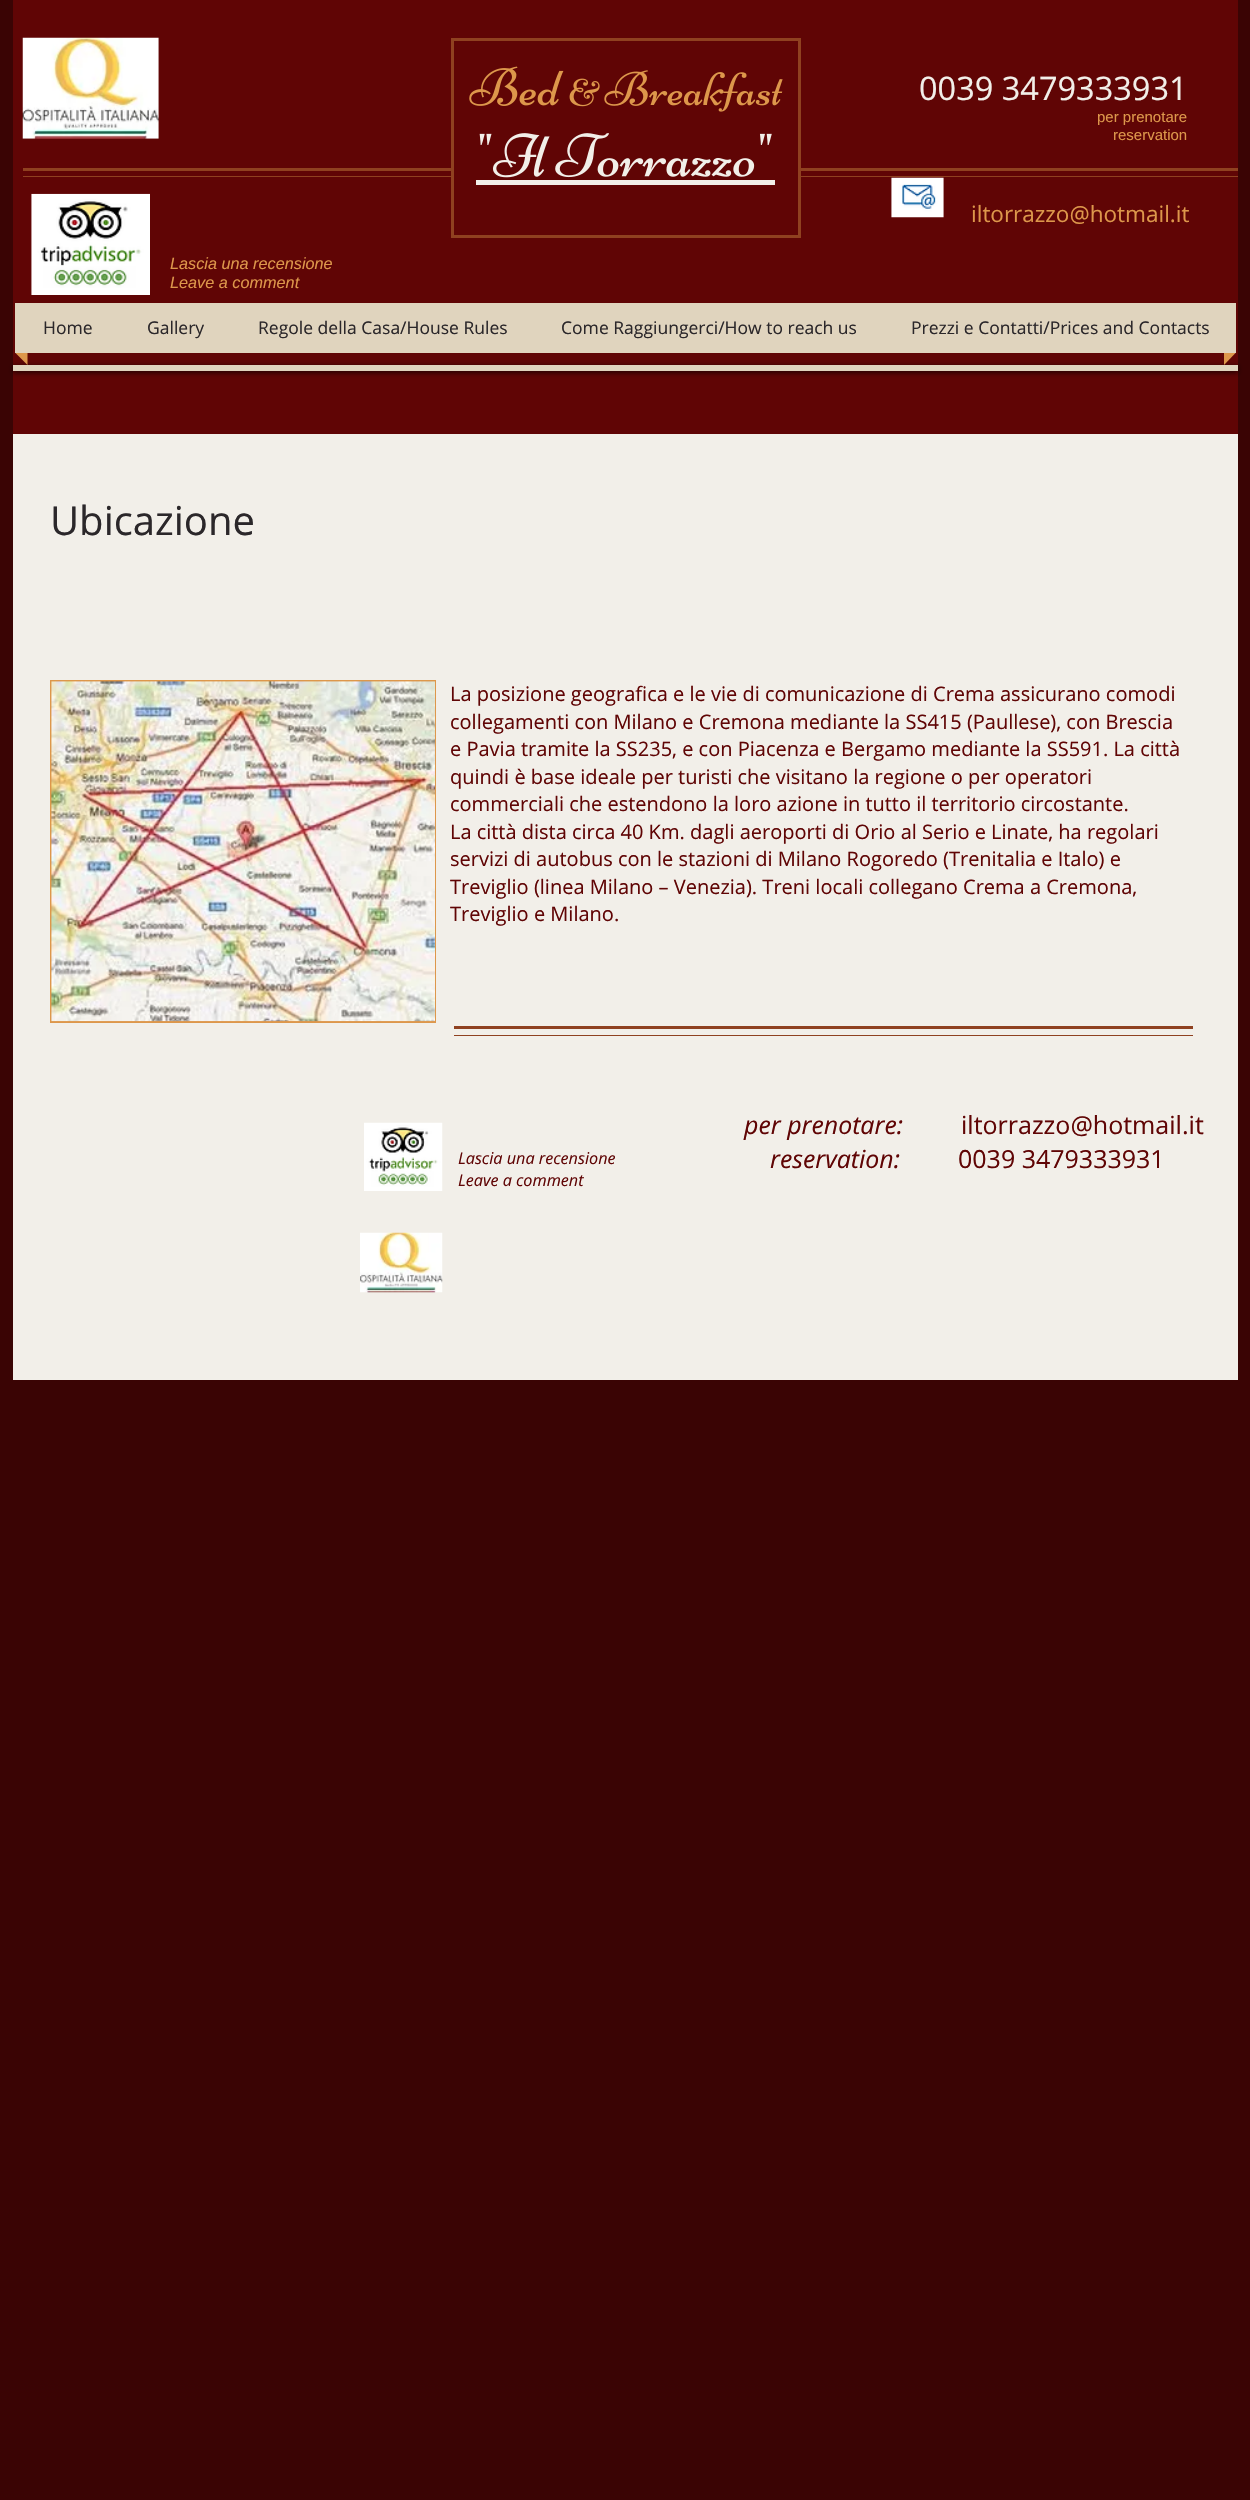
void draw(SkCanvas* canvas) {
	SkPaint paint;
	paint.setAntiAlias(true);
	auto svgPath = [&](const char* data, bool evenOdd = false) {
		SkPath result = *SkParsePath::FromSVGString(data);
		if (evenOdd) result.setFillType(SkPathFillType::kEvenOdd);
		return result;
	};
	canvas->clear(0xff3a0404);
	paint.setColor(0xff600505);
	canvas->drawRect(SkRect::MakeXYWH(13, 0, 1225, 434), paint);
	canvas->drawImageRect(SkImages::DeferredFromEncodedData(SkData::MakeFromFileName("img1.png")), SkRect::MakeXYWH(22, 37, 137, 102), SkSamplingOptions());
	paint.setStroke(true);
	paint.setStrokeWidth(3);
	paint.setColor(0xff8f4120);
	canvas->drawRect(SkRect::MakeXYWH(452.5, 39.5, 347, 197), paint);
	canvas->drawImageRect(SkImages::DeferredFromEncodedData(SkData::MakeFromFileName("img2.png")), SkRect::MakeXYWH(469, 66, 95, 40), SkSamplingOptions());
	canvas->drawImageRect(SkImages::DeferredFromEncodedData(SkData::MakeFromFileName("img3.png")), SkRect::MakeXYWH(569, 78, 31, 29), SkSamplingOptions());
	canvas->drawImageRect(SkImages::DeferredFromEncodedData(SkData::MakeFromFileName("img4.png")), SkRect::MakeXYWH(604, 70, 179, 42), SkSamplingOptions());
	canvas->drawImageRect(SkImages::DeferredFromEncodedData(SkData::MakeFromFileName("img5.png")), SkRect::MakeXYWH(479, 133, 293, 45), SkSamplingOptions());
	paint.setStroke(false);
	paint.setColor(0xfff2efe9);
	canvas->drawRect(SkRect::MakeXYWH(476, 180, 299, 5), paint);
	SkFont f1(fontMgr->matchFamilyStyle("Open Sans", SkFontStyle::Normal()), 32.5);
	f1.setSubpixel(true);
	canvas->drawString("0039 3479333931", 919, 100, f1, paint);
	SkFont f2(fontMgr->matchFamilyStyle("Liberation Sans", SkFontStyle::Normal()), 15);
	f2.setSubpixel(true);
	paint.setColor(0xffdd974b);
	canvas->drawString("per prenotare", 1097, 122, f2, paint);
	canvas->drawString("reservation", 1113, 140, f2, paint);
	paint.setColor(0xff8f4120);
	canvas->drawRect(SkRect::MakeXYWH(23, 168, 428, 3), paint);
	canvas->drawRect(SkRect::MakeXYWH(23, 176, 428, 1), paint);
	canvas->drawRect(SkRect::MakeXYWH(800, 168, 438, 3), paint);
	canvas->drawRect(SkRect::MakeXYWH(800, 176, 438, 1), paint);
	canvas->drawImageRect(SkImages::DeferredFromEncodedData(SkData::MakeFromFileName("img6.png")), SkRect::MakeXYWH(31, 193, 119, 102), SkSamplingOptions());
	canvas->drawImageRect(SkImages::DeferredFromEncodedData(SkData::MakeFromFileName("img7.png")), SkRect::MakeXYWH(891, 177, 53, 41), SkSamplingOptions());
	SkFont f3(fontMgr->matchFamilyStyle("Open Sans", SkFontStyle::Normal()), 22.5);
	f3.setSubpixel(true);
	paint.setColor(0xffdd974b);
	canvas->drawString("iltorrazzo@hotmail.it", 971, 222, f3, paint);
	SkFont f4(fontMgr->matchFamilyStyle("Liberation Sans", SkFontStyle::Italic()), 16.25);
	f4.setSubpixel(true);
	canvas->drawString("Lascia una recensione", 170, 269, f4, paint);
	canvas->drawString("Leave a comment", 170, 288, f4, paint);
	paint.setColor(0x99000000);
	paint.setMaskFilter(SkMaskFilter::MakeBlur(kNormal_SkBlurStyle, 2.5));
	canvas->drawRect(SkRect::MakeXYWH(13, 366, 1225, 7), paint);
	paint.setMaskFilter(nullptr);
	paint.setColor(0xffdd974b);
	canvas->drawPath(svgPath("M15 352.5H27.5V365Z"), paint);
	canvas->drawPath(svgPath("M1224 352.5H1236L1224 365Z"), paint);
	paint.setColor(0xffe0d4be);
	canvas->drawRect(SkRect::MakeXYWH(15, 303, 1221, 50), paint);
	SkFont f5(fontMgr->matchFamilyStyle("Open Sans", SkFontStyle::Normal()), 17.5);
	f5.setSubpixel(true);
	paint.setColor(0xff2b272a);
	canvas->drawString("Home", 43, 334, f5, paint);
	canvas->drawString("Gallery", 147, 334, f5, paint);
	canvas->drawString("Regole della Casa/House Rules", 258, 334, f5, paint);
	canvas->drawString("Come Raggiungerci/How to reach us", 561, 334, f5, paint);
	canvas->drawString("Prezzi e Contatti/Prices and Contacts", 911, 334, f5, paint);
	paint.setColor(0xffe0d4be);
	canvas->drawRect(SkRect::MakeXYWH(13, 365, 1225, 6), paint);
	paint.setColor(0xfff2efe9);
	canvas->drawRect(SkRect::MakeXYWH(13, 434, 1225, 946), paint);
	SkFont f6(fontMgr->matchFamilyStyle("Open Sans", SkFontStyle::Normal()), 40);
	f6.setSubpixel(true);
	paint.setColor(0xff2b272a);
	canvas->drawString("Ubicazione", 50, 535, f6, paint);
	paint.setColor(0xffdd974b);
	canvas->drawRect(SkRect::MakeXYWH(50, 680, 386, 343), paint);
	canvas->drawImageRect(SkImages::DeferredFromEncodedData(SkData::MakeFromFileName("img8.png")), SkRect::MakeXYWH(51, 681, 384, 341), SkSamplingOptions());
	SkFont f7(fontMgr->matchFamilyStyle("Open Sans", SkFontStyle::Normal()), 20);
	f7.setSubpixel(true);
	paint.setColor(0xff600505);
	canvas->drawString("La posizione geografica e le vie di comunicazione di Crema assicurano comodi", 450, 701, f7, paint);
	canvas->drawString("collegamenti con Milano e Cremona mediante la SS415 (Paullese), con Brescia", 450, 729, f7, paint);
	canvas->drawString("e Pavia tramite la SS235, e con Piacenza e Bergamo mediante la SS591. La città", 450, 756, f7, paint);
	canvas->drawString("quindi è base ideale per turisti che visitano la regione o per operatori", 450, 784, f7, paint);
	canvas->drawString("commerciali che estendono la loro azione in tutto il territorio circostante.", 450, 811, f7, paint);
	canvas->drawString("La città dista circa 40 Km. dagli aeroporti di Orio al Serio e Linate, ha regolari", 450, 839, f7, paint);
	canvas->drawString("servizi di autobus con le stazioni di Milano Rogoredo (Trenitalia e Italo) e", 450, 866, f7, paint);
	canvas->drawString("Treviglio (linea Milano – Venezia). Treni locali collegano Crema a Cremona,", 450, 894, f7, paint);
	canvas->drawString("Treviglio e Milano.", 450, 921, f7, paint);
	paint.setColor(0xff8f4120);
	canvas->drawRect(SkRect::MakeXYWH(454, 1026, 739, 3), paint);
	canvas->drawRect(SkRect::MakeXYWH(454, 1035, 739, 1), paint);
	canvas->drawImageRect(SkImages::DeferredFromEncodedData(SkData::MakeFromFileName("img9.png")), SkRect::MakeXYWH(364, 1122, 79, 69), SkSamplingOptions());
	SkFont f8(fontMgr->matchFamilyStyle("Open Sans", SkFontStyle::Italic()), 16.25);
	f8.setSubpixel(true);
	paint.setColor(0xff600505);
	canvas->drawString("Lascia una recensione", 458, 1164, f8, paint);
	canvas->drawString("Leave a comment", 458, 1186, f8, paint);
	SkFont f9(fontMgr->matchFamilyStyle("Open Sans", SkFontStyle::Italic()), 25);
	f9.setSubpixel(true);
	canvas->drawString("per prenotare:", 744, 1134, f9, paint);
	SkFont f10(fontMgr->matchFamilyStyle("Open Sans", SkFontStyle::Normal()), 25);
	f10.setSubpixel(true);
	canvas->drawString("iltorrazzo@hotmail.it", 961, 1134, f10, paint);
	canvas->drawString("reservation:", 770, 1168, f9, paint);
	canvas->drawString("0039 3479333931", 958, 1168, f10, paint);
	canvas->drawImageRect(SkImages::DeferredFromEncodedData(SkData::MakeFromFileName("img10.png")), SkRect::MakeXYWH(360, 1232, 83, 61), SkSamplingOptions());
}
